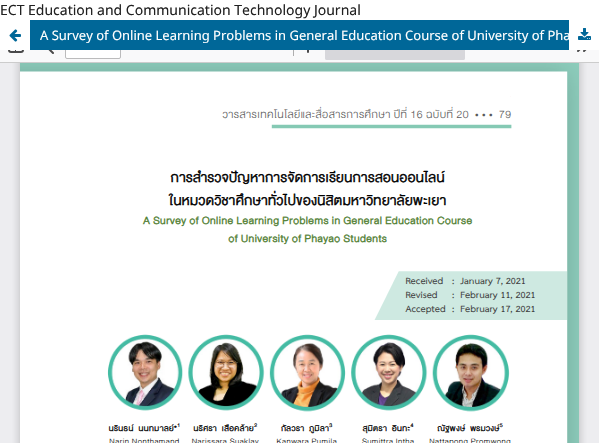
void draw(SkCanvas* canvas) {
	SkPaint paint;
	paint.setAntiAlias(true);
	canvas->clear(0xffffffff);
	SkFont f1(fontMgr->matchFamilyStyle("Noto Sans", SkFontStyle::Normal()), 14);
	f1.setSubpixel(true);
	paint.setColor(0xff212121);
	canvas->drawString("ECT Education and Communication Technology Journal", 0, 15, f1, paint);
	paint.setColor(0xff006798);
	canvas->drawRect(SkRect::MakeXYWH(30, 20, 539, 30), paint);
	canvas->drawImageRect(SkImages::DeferredFromEncodedData(SkData::MakeFromFileName("img1.png")), SkRect::MakeXYWH(9, 29, 12, 13), SkSamplingOptions());
	SkFont f2(fontMgr->matchFamilyStyle("Noto Sans", SkFontStyle::Normal()), 13);
	f2.setSubpixel(true);
	paint.setColor(0xffffffff);
	canvas->drawString("A Survey of Online Learning Problems in General Education Course of University of Pha", 40, 40, f2, paint);
	canvas->drawImageRect(SkImages::DeferredFromEncodedData(SkData::MakeFromFileName("img2.png")), SkRect::MakeXYWH(578, 28, 13, 12), SkSamplingOptions());
	canvas->drawImageRect(SkImages::DeferredFromEncodedData(SkData::MakeFromFileName("img3.png")), SkRect::MakeXYWH(0, 50, 599, 393), SkSamplingOptions());
}
